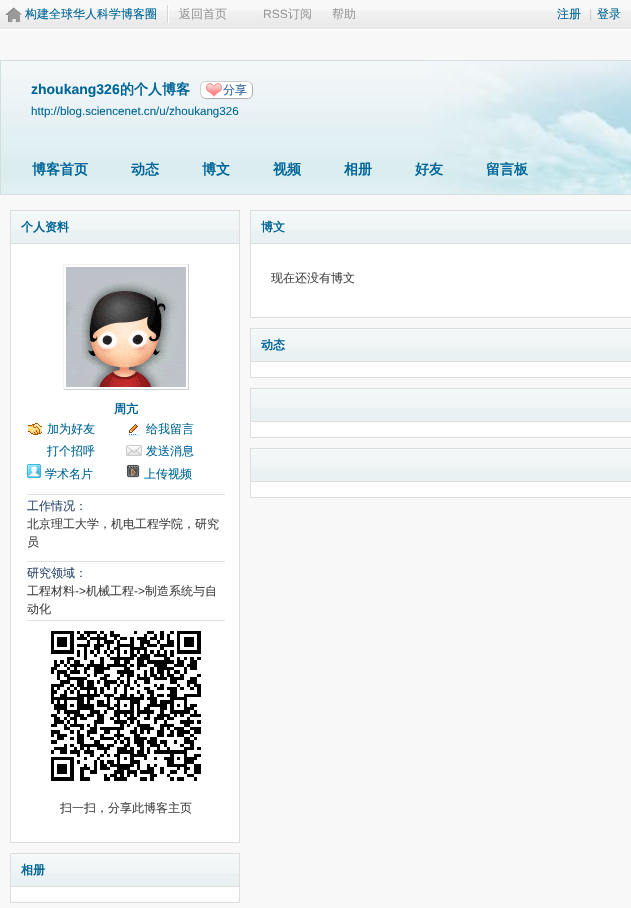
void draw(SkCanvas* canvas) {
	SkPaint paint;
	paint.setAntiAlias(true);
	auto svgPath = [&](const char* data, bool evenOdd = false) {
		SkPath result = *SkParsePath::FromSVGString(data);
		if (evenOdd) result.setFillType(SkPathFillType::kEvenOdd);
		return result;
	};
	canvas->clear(0xfff8f8f8);
	canvas->drawImageRect(SkImages::DeferredFromEncodedData(SkData::MakeFromFileName("img1.png")), SkRect::MakeXYWH(0, 10, 631, 20), SkSamplingOptions());
	canvas->drawImageRect(SkImages::DeferredFromEncodedData(SkData::MakeFromFileName("img2.png")), SkRect::MakeXYWH(5, 7, 17, 15), SkSamplingOptions());
	paint.setColor(0xffffffff);
	canvas->drawRect(SkRect::MakeXYWH(168, 5, 1, 18), paint);
	paint.setColor(0xffd5d5d5);
	canvas->drawRect(SkRect::MakeXYWH(167, 5, 1, 18), paint);
	SkFont f1(fontMgr->matchFamilyStyle("WenQuanYi Zen Hei", SkFontStyle(500, SkFontStyle::kNormal_Width, SkFontStyle::kUpright_Slant)), 12);
	f1.setSubpixel(true);
	paint.setColor(0xff006699);
	canvas->drawString("构建全球华人科学博客圈", 25, 18, f1, paint);
	paint.setColor(0xff999999);
	canvas->drawString("返回首页", 179, 18, f1, paint);
	SkFont f2(fontMgr->matchFamilyStyle("Liberation Sans", SkFontStyle::Normal()), 12);
	f2.setSubpixel(true);
	canvas->drawString("RSS", 263, 18, f2, paint);
	canvas->drawString("订阅", 288, 18, f1, paint);
	canvas->drawString("帮助", 332, 18, f1, paint);
	paint.setColor(0xff006699);
	canvas->drawString("注册", 557, 18, f1, paint);
	paint.setColor(0xffcccccc);
	canvas->drawString("|", 589, 18, f2, paint);
	paint.setColor(0xff006699);
	canvas->drawString("登录", 597, 18, f1, paint);
	canvas->drawImageRect(SkImages::DeferredFromEncodedData(SkData::MakeFromFileName("img3.png")), SkRect::MakeXYWH(1, 61, 630, 133), SkSamplingOptions());
	paint.setStroke(true);
	paint.setStrokeWidth(1);
	paint.setColor(0xffd3dfdf);
	canvas->drawRect(SkRect::MakeXYWH(0.5, 60.5, 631, 134), paint);
	SkFont f3(fontMgr->matchFamilyStyle("Liberation Sans", SkFontStyle::Bold()), 14);
	f3.setSubpixel(true);
	paint.setStroke(false);
	paint.setColor(0xff006699);
	canvas->drawString("zhoukang326", 31, 94, f3, paint);
	SkFont f4(fontMgr->matchFamilyStyle("WenQuanYi Zen Hei", SkFontStyle::Bold()), 14);
	f4.setSubpixel(true);
	canvas->drawString("的个人博客", 120, 94, f4, paint);
	paint.setColor(0xffffffff);
	canvas->drawRoundRect(SkRect::MakeXYWH(200, 81, 53, 18), 5, 5, paint);
	canvas->drawImageRect(SkImages::DeferredFromEncodedData(SkData::MakeFromFileName("img4.png")), SkRect::MakeXYWH(206, 83, 16, 14), SkSamplingOptions());
	paint.setStroke(true);
	paint.setColor(0xffa9a9a9);
	canvas->drawPath(svgPath("M251 83C253 85 252.5 88 252.5 91C252.5 100 249.5 98.5 241 98.5H212C210 98.5 204.5 99.5 202 97"), paint);
	paint.setColor(0xffcccccc);
	canvas->drawPath(svgPath("M202 97C200 95 200.5 92 200.5 89C200.5 80 203.5 81.5 212 81.5H241C243 81.5 248.5 80.5 251 83"), paint);
	paint.setStroke(false);
	paint.setColor(0xff336699);
	canvas->drawString("分享", 223, 94, f1, paint);
	SkFont f5(fontMgr->matchFamilyStyle("Liberation Sans", SkFontStyle::Normal()), 11.6);
	f5.setSubpixel(true);
	paint.setColor(0xff006699);
	canvas->drawString("http://blog.sciencenet.cn/u/zhoukang326", 31, 115, f5, paint);
	canvas->drawString("博客首页", 32, 174, f4, paint);
	canvas->drawString("动态", 131, 174, f4, paint);
	canvas->drawString("博文", 202, 174, f4, paint);
	canvas->drawString("视频", 273, 174, f4, paint);
	canvas->drawString("相册", 344, 174, f4, paint);
	canvas->drawString("好友", 415, 174, f4, paint);
	canvas->drawString("留言板", 486, 174, f4, paint);
	paint.setColor(0xffffffff);
	canvas->drawRect(SkRect::MakeXYWH(11, 244, 228, 598), paint);
	paint.setStroke(true);
	paint.setColor(0xffdddddd);
	canvas->drawRect(SkRect::MakeXYWH(10.5, 210.5, 229, 632), paint);
	paint.setStroke(false);
	paint.setColor(0xffeaf1f2);
	canvas->drawRect(SkRect::MakeXYWH(11, 230, 228, 13), paint);
	canvas->drawImageRect(SkImages::DeferredFromEncodedData(SkData::MakeFromFileName("img5.png")), SkRect::MakeXYWH(11, 211, 228, 19), SkSamplingOptions());
	paint.setColor(0xffdddddd);
	canvas->drawRect(SkRect::MakeXYWH(11, 243, 228, 1), paint);
	SkFont f6(fontMgr->matchFamilyStyle("WenQuanYi Zen Hei", SkFontStyle::Bold()), 12);
	f6.setSubpixel(true);
	paint.setColor(0xff006699);
	canvas->drawString("个人资料", 21, 231, f6, paint);
	paint.setColor(0xfff2f2f2);
	canvas->drawRect(SkRect::MakeXYWH(63, 264, 126, 1), paint);
	paint.setColor(0xffcdcdcd);
	canvas->drawRect(SkRect::MakeXYWH(188, 264, 1, 126), paint);
	canvas->drawRect(SkRect::MakeXYWH(63, 389, 126, 1), paint);
	paint.setColor(0xfff2f2f2);
	canvas->drawRect(SkRect::MakeXYWH(63, 264, 1, 126), paint);
	canvas->drawImageRect(SkImages::DeferredFromEncodedData(SkData::MakeFromFileName("img6.png")), SkRect::MakeXYWH(66, 267, 120, 120), SkSamplingOptions());
	paint.setColor(0xff006699);
	canvas->drawString("周亢", 114, 413, f6, paint);
	canvas->drawImageRect(SkImages::DeferredFromEncodedData(SkData::MakeFromFileName("img7.png")), SkRect::MakeXYWH(28, 423, 14, 12), SkSamplingOptions());
	canvas->drawString("加为好友", 47, 433, f1, paint);
	canvas->drawImageRect(SkImages::DeferredFromEncodedData(SkData::MakeFromFileName("img8.png")), SkRect::MakeXYWH(129, 424, 11, 12), SkSamplingOptions());
	canvas->drawString("给我留言", 146, 433, f1, paint);
	canvas->drawString("打个招呼", 47, 455, f1, paint);
	canvas->drawImageRect(SkImages::DeferredFromEncodedData(SkData::MakeFromFileName("img9.png")), SkRect::MakeXYWH(126, 445, 16, 11), SkSamplingOptions());
	canvas->drawString("发送消息", 146, 455, f1, paint);
	canvas->drawImageRect(SkImages::DeferredFromEncodedData(SkData::MakeFromFileName("img10.png")), SkRect::MakeXYWH(27, 464, 14, 14), SkSamplingOptions());
	canvas->drawString("学术名片", 45, 478, f1, paint);
	canvas->drawImageRect(SkImages::DeferredFromEncodedData(SkData::MakeFromFileName("img11.png")), SkRect::MakeXYWH(126, 464, 14, 14), SkSamplingOptions());
	canvas->drawString("上传视频", 144, 478, f1, paint);
	paint.setColor(0xffdfdfdf);
	canvas->drawRect(SkRect::MakeXYWH(27, 494, 198, 1), paint);
	paint.setColor(0xff2f496f);
	canvas->drawString("工作情况：", 27, 510, f1, paint);
	paint.setColor(0xff444444);
	canvas->drawString("北京理工大学，机电工程学院，研究", 27, 528, f1, paint);
	canvas->drawString("员", 27, 546, f1, paint);
	paint.setColor(0xffdfdfdf);
	canvas->drawRect(SkRect::MakeXYWH(27, 561, 198, 1), paint);
	canvas->drawRect(SkRect::MakeXYWH(27, 620, 198, 1), paint);
	paint.setColor(0xff2f496f);
	canvas->drawString("研究领域：", 27, 577, f1, paint);
	paint.setColor(0xff444444);
	canvas->drawString("工程材料", 27, 595, f1, paint);
	canvas->drawString("->", 75, 595, f2, paint);
	canvas->drawString("机械工程", 86, 595, f1, paint);
	canvas->drawString("->", 134, 595, f2, paint);
	canvas->drawString("制造系统与自", 145, 595, f1, paint);
	canvas->drawString("动化", 27, 613, f1, paint);
	canvas->drawImageRect(SkImages::DeferredFromEncodedData(SkData::MakeFromFileName("img12.png")), SkRect::MakeXYWH(51, 631, 150, 150), SkSamplingOptions());
	canvas->drawString("扫一扫，分享此博客主页", 60, 812, f1, paint);
	paint.setColor(0xffffffff);
	canvas->drawRect(SkRect::MakeXYWH(11, 887, 228, 15), paint);
	paint.setStroke(true);
	paint.setColor(0xffdddddd);
	canvas->drawRect(SkRect::MakeXYWH(10.5, 853.5, 229, 49), paint);
	paint.setStroke(false);
	paint.setColor(0xffeaf1f2);
	canvas->drawRect(SkRect::MakeXYWH(11, 873, 228, 13), paint);
	canvas->drawImageRect(SkImages::DeferredFromEncodedData(SkData::MakeFromFileName("img5.png")), SkRect::MakeXYWH(11, 854, 228, 19), SkSamplingOptions());
	paint.setColor(0xffdddddd);
	canvas->drawRect(SkRect::MakeXYWH(11, 886, 228, 1), paint);
	paint.setColor(0xff006699);
	canvas->drawString("相册", 21, 874, f6, paint);
	paint.setColor(0xffffffff);
	canvas->drawRect(SkRect::MakeXYWH(251, 244, 380, 73), paint);
	paint.setStroke(true);
	paint.setColor(0xffdddddd);
	canvas->drawRect(SkRect::MakeXYWH(250.5, 210.5, 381, 107), paint);
	paint.setStroke(false);
	paint.setColor(0xffeaf1f2);
	canvas->drawRect(SkRect::MakeXYWH(251, 230, 380, 13), paint);
	canvas->drawImageRect(SkImages::DeferredFromEncodedData(SkData::MakeFromFileName("img13.png")), SkRect::MakeXYWH(251, 211, 380, 19), SkSamplingOptions());
	paint.setColor(0xffdddddd);
	canvas->drawRect(SkRect::MakeXYWH(251, 243, 380, 1), paint);
	paint.setColor(0xff006699);
	canvas->drawString("博文", 261, 231, f6, paint);
	paint.setColor(0xff444444);
	canvas->drawString("现在还没有博文", 271, 282, f1, paint);
	paint.setColor(0xffffffff);
	canvas->drawRect(SkRect::MakeXYWH(251, 362, 380, 15), paint);
	paint.setStroke(true);
	paint.setColor(0xffdddddd);
	canvas->drawRect(SkRect::MakeXYWH(250.5, 328.5, 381, 49), paint);
	paint.setStroke(false);
	paint.setColor(0xffeaf1f2);
	canvas->drawRect(SkRect::MakeXYWH(251, 348, 380, 13), paint);
	canvas->drawImageRect(SkImages::DeferredFromEncodedData(SkData::MakeFromFileName("img13.png")), SkRect::MakeXYWH(251, 329, 380, 19), SkSamplingOptions());
	paint.setColor(0xffdddddd);
	canvas->drawRect(SkRect::MakeXYWH(251, 361, 380, 1), paint);
	paint.setColor(0xff006699);
	canvas->drawString("动态", 261, 349, f6, paint);
	paint.setColor(0xffffffff);
	canvas->drawRect(SkRect::MakeXYWH(251, 422, 380, 15), paint);
	paint.setStroke(true);
	paint.setColor(0xffdddddd);
	canvas->drawRect(SkRect::MakeXYWH(250.5, 388.5, 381, 49), paint);
	paint.setStroke(false);
	paint.setColor(0xffeaf1f2);
	canvas->drawRect(SkRect::MakeXYWH(251, 408, 380, 13), paint);
	canvas->drawImageRect(SkImages::DeferredFromEncodedData(SkData::MakeFromFileName("img13.png")), SkRect::MakeXYWH(251, 389, 380, 19), SkSamplingOptions());
	paint.setColor(0xffdddddd);
	canvas->drawRect(SkRect::MakeXYWH(251, 421, 380, 1), paint);
	paint.setColor(0xffffffff);
	canvas->drawRect(SkRect::MakeXYWH(251, 482, 380, 15), paint);
	paint.setStroke(true);
	paint.setColor(0xffdddddd);
	canvas->drawRect(SkRect::MakeXYWH(250.5, 448.5, 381, 49), paint);
	paint.setStroke(false);
	paint.setColor(0xffeaf1f2);
	canvas->drawRect(SkRect::MakeXYWH(251, 468, 380, 13), paint);
	canvas->drawImageRect(SkImages::DeferredFromEncodedData(SkData::MakeFromFileName("img13.png")), SkRect::MakeXYWH(251, 449, 380, 19), SkSamplingOptions());
	paint.setColor(0xffdddddd);
	canvas->drawRect(SkRect::MakeXYWH(251, 481, 380, 1), paint);
}
